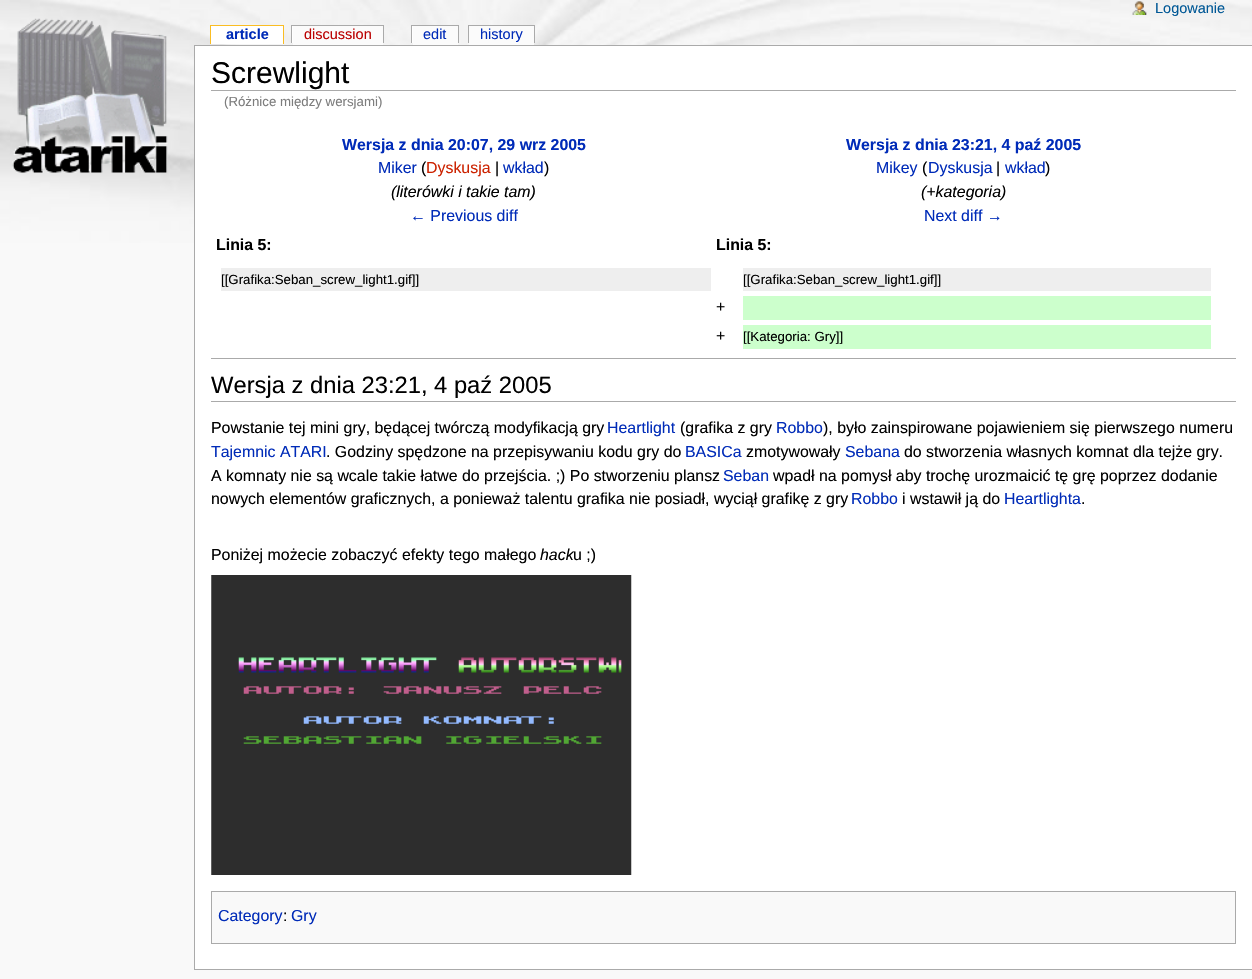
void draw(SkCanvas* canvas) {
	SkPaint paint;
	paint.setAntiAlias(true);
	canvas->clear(0xfff9f9f9);
	canvas->drawImageRect(SkImages::DeferredFromEncodedData(SkData::MakeFromFileName("img1.png")), SkRect::MakeXYWH(0, 0, 1252, 243), SkSamplingOptions());
	canvas->drawImageRect(SkImages::DeferredFromEncodedData(SkData::MakeFromFileName("img2.png")), SkRect::MakeXYWH(1132, 1, 15, 14), SkSamplingOptions());
	SkFont f1(fontMgr->matchFamilyStyle("Liberation Sans", SkFontStyle::Normal()), 14.5);
	f1.setSubpixel(true);
	paint.setColor(0xff005896);
	canvas->drawString("Logowanie", 1155, 13, f1, paint);
	canvas->drawImageRect(SkImages::DeferredFromEncodedData(SkData::MakeFromFileName("img3.png")), SkRect::MakeXYWH(12, 18, 156, 155), SkSamplingOptions());
	paint.setColor(0xffffffff);
	canvas->drawRect(SkRect::MakeXYWH(211, 26, 72, 18), paint);
	SkFont f2(fontMgr->matchFamilyStyle("Liberation Sans", SkFontStyle::Bold()), 14.5);
	f2.setSubpixel(true);
	paint.setColor(0xff002bb8);
	canvas->drawString("article", 226, 39, f2, paint);
	paint.setColor(0xfffabd23);
	canvas->drawRect(SkRect::MakeXYWH(210, 25, 74, 1), paint);
	canvas->drawRect(SkRect::MakeXYWH(283, 25, 1, 19), paint);
	canvas->drawRect(SkRect::MakeXYWH(210, 25, 1, 19), paint);
	paint.setColor(0xfffbfbfb);
	canvas->drawRect(SkRect::MakeXYWH(293, 26, 90, 19), paint);
	paint.setColor(0xffba0000);
	canvas->drawString("discussion", 304, 39, f1, paint);
	paint.setColor(0xffffffff);
	canvas->drawRect(SkRect::MakeXYWH(292, 26, 1, 17), paint);
	paint.setColor(0xffaaaaaa);
	canvas->drawRect(SkRect::MakeXYWH(291, 25, 93, 1), paint);
	canvas->drawRect(SkRect::MakeXYWH(383, 25, 1, 18), paint);
	canvas->drawRect(SkRect::MakeXYWH(291, 25, 1, 18), paint);
	paint.setColor(0xfffbfbfb);
	canvas->drawRect(SkRect::MakeXYWH(413, 26, 45, 19), paint);
	paint.setColor(0xff002bb8);
	canvas->drawString("edit", 423, 39, f1, paint);
	paint.setColor(0xffffffff);
	canvas->drawRect(SkRect::MakeXYWH(412, 26, 1, 17), paint);
	paint.setColor(0xffaaaaaa);
	canvas->drawRect(SkRect::MakeXYWH(411, 25, 48, 1), paint);
	canvas->drawRect(SkRect::MakeXYWH(458, 25, 1, 18), paint);
	canvas->drawRect(SkRect::MakeXYWH(411, 25, 1, 18), paint);
	paint.setColor(0xfffbfbfb);
	canvas->drawRect(SkRect::MakeXYWH(469, 26, 65, 19), paint);
	paint.setColor(0xff002bb8);
	canvas->drawString("history", 480, 39, f1, paint);
	paint.setColor(0xffaaaaaa);
	canvas->drawRect(SkRect::MakeXYWH(468, 25, 67, 1), paint);
	canvas->drawRect(SkRect::MakeXYWH(534, 25, 1, 18), paint);
	canvas->drawRect(SkRect::MakeXYWH(468, 25, 1, 18), paint);
	paint.setColor(0xffffffff);
	canvas->drawRect(SkRect::MakeXYWH(195, 46, 1057, 923), paint);
	paint.setColor(0xffaaaaaa);
	canvas->drawRect(SkRect::MakeXYWH(194, 45, 1058, 1), paint);
	canvas->drawRect(SkRect::MakeXYWH(194, 969, 1058, 1), paint);
	canvas->drawRect(SkRect::MakeXYWH(194, 45, 1, 925), paint);
	canvas->drawRect(SkRect::MakeXYWH(211, 90, 1025, 1), paint);
	SkFont f3(fontMgr->matchFamilyStyle("Liberation Sans", SkFontStyle::Normal()), 30);
	f3.setSubpixel(true);
	paint.setColor(0xff000000);
	canvas->drawString("Screwlight", 211, 83, f3, paint);
	SkFont f4(fontMgr->matchFamilyStyle("Liberation Sans", SkFontStyle::Normal()), 13.25);
	f4.setSubpixel(true);
	paint.setColor(0xff7d7d7d);
	canvas->drawString("(Różnice między wersjami)", 224, 106, f4, paint);
	SkFont f5(fontMgr->matchFamilyStyle("Liberation Sans", SkFontStyle::Bold()), 15.9);
	f5.setSubpixel(true);
	paint.setColor(0xff002bb8);
	canvas->drawString("Wersja z dnia 20:07, 29 wrz 2005", 342, 150, f5, paint);
	SkFont f6(fontMgr->matchFamilyStyle("Liberation Sans", SkFontStyle::Normal()), 15.9);
	f6.setSubpixel(true);
	canvas->drawString("Miker", 378, 173, f6, paint);
	paint.setColor(0xff000000);
	canvas->drawString("(", 421, 173, f6, paint);
	paint.setColor(0xffcc2200);
	canvas->drawString("Dyskusja", 426, 173, f6, paint);
	paint.setColor(0xff000000);
	canvas->drawString("|", 495, 173, f6, paint);
	paint.setColor(0xff002bb8);
	canvas->drawString("wkład", 503, 173, f6, paint);
	paint.setColor(0xff000000);
	canvas->drawString(")", 544, 173, f6, paint);
	SkFont f7(fontMgr->matchFamilyStyle("Liberation Sans", SkFontStyle::Italic()), 15.9);
	f7.setSubpixel(true);
	canvas->drawString("(literówki i takie tam)", 391, 197, f7, paint);
	paint.setColor(0xff002bb8);
	canvas->drawString("← Previous diff", 410, 221, f6, paint);
	canvas->drawString("Wersja z dnia 23:21, 4 paź 2005", 846, 150, f5, paint);
	canvas->drawString("Mikey", 876, 173, f6, paint);
	paint.setColor(0xff000000);
	canvas->drawString("(", 922, 173, f6, paint);
	paint.setColor(0xff002bb8);
	canvas->drawString("Dyskusja", 928, 173, f6, paint);
	paint.setColor(0xff000000);
	canvas->drawString("|", 996, 173, f6, paint);
	paint.setColor(0xff002bb8);
	canvas->drawString("wkład", 1005, 173, f6, paint);
	paint.setColor(0xff000000);
	canvas->drawString(")", 1045, 173, f6, paint);
	canvas->drawString("(+kategoria)", 921, 197, f7, paint);
	paint.setColor(0xff002bb8);
	canvas->drawString("Next diff →", 924, 221, f6, paint);
	paint.setColor(0xff000000);
	canvas->drawString("Linia 5:", 216, 250, f5, paint);
	canvas->drawString("Linia 5:", 716, 250, f5, paint);
	paint.setColor(0xffeeeeee);
	canvas->drawRect(SkRect::MakeXYWH(221, 268, 490, 23), paint);
	paint.setColor(0xff000000);
	canvas->drawString("[[Grafika:Seban_screw_light1.gif]]", 221, 284, f4, paint);
	paint.setColor(0xffeeeeee);
	canvas->drawRect(SkRect::MakeXYWH(743, 268, 468, 23), paint);
	paint.setColor(0xff000000);
	canvas->drawString("[[Grafika:Seban_screw_light1.gif]]", 743, 284, f4, paint);
	canvas->drawString("+", 716, 312, f6, paint);
	paint.setColor(0xffccffcc);
	canvas->drawRect(SkRect::MakeXYWH(743, 296, 468, 24), paint);
	paint.setColor(0xff000000);
	canvas->drawString("+", 716, 341, f6, paint);
	paint.setColor(0xffccffcc);
	canvas->drawRect(SkRect::MakeXYWH(743, 325, 468, 24), paint);
	paint.setColor(0xff000000);
	canvas->drawString("[[Kategoria: Gry]]", 743, 341, f4, paint);
	paint.setColor(0xffaaaaaa);
	canvas->drawRect(SkRect::MakeXYWH(211, 358, 1025, 1), paint);
	canvas->drawRect(SkRect::MakeXYWH(211, 401, 1025, 1), paint);
	SkFont f8(fontMgr->matchFamilyStyle("Liberation Sans", SkFontStyle::Normal()), 23.75);
	f8.setSubpixel(true);
	paint.setColor(0xff000000);
	canvas->drawString("Wersja z dnia 23:21, 4 paź 2005", 211, 393, f8, paint);
	canvas->drawString("Powstanie tej mini gry, będącej twórczą modyfikacją gry", 211, 433, f6, paint);
	paint.setColor(0xff002bb8);
	canvas->drawString("Heartlight", 607, 433, f6, paint);
	paint.setColor(0xff000000);
	canvas->drawString("(grafika z gry", 680, 433, f6, paint);
	paint.setColor(0xff002bb8);
	canvas->drawString("Robbo", 776, 433, f6, paint);
	paint.setColor(0xff000000);
	canvas->drawString("), było zainspirowane pojawieniem się pierwszego numeru", 823, 433, f6, paint);
	paint.setColor(0xff002bb8);
	canvas->drawString("Tajemnic ATARI", 211, 457, f6, paint);
	paint.setColor(0xff000000);
	canvas->drawString(". Godziny spędzone na przepisywaniu kodu gry do", 326, 457, f6, paint);
	paint.setColor(0xff002bb8);
	canvas->drawString("BASICa", 685, 457, f6, paint);
	paint.setColor(0xff000000);
	canvas->drawString("zmotywowały", 746, 457, f6, paint);
	paint.setColor(0xff002bb8);
	canvas->drawString("Sebana", 845, 457, f6, paint);
	paint.setColor(0xff000000);
	canvas->drawString("do stworzenia własnych komnat dla tejże gry.", 904, 457, f6, paint);
	canvas->drawString("A komnaty nie są wcale takie łatwe do przejścia. ;) Po stworzeniu plansz", 211, 481, f6, paint);
	paint.setColor(0xff002bb8);
	canvas->drawString("Seban", 723, 481, f6, paint);
	paint.setColor(0xff000000);
	canvas->drawString("wpadł na pomysł aby trochę urozmaicić tę grę poprzez dodanie", 773, 481, f6, paint);
	canvas->drawString("nowych elementów graficznych, a ponieważ talentu grafika nie posiadł, wyciął grafikę z gry", 211, 504, f6, paint);
	paint.setColor(0xff002bb8);
	canvas->drawString("Robbo", 851, 504, f6, paint);
	paint.setColor(0xff000000);
	canvas->drawString("i wstawił ją do", 902, 504, f6, paint);
	paint.setColor(0xff002bb8);
	canvas->drawString("Heartlighta", 1004, 504, f6, paint);
	paint.setColor(0xff000000);
	canvas->drawString(".", 1081, 504, f6, paint);
	canvas->drawString("Poniżej możecie zobaczyć efekty tego małego", 211, 560, f6, paint);
	canvas->drawString("hack", 540, 560, f7, paint);
	canvas->drawString("u ;)", 573, 560, f6, paint);
	canvas->drawImageRect(SkImages::DeferredFromEncodedData(SkData::MakeFromFileName("img4.png")), SkRect::MakeXYWH(211, 575, 421, 300), SkSamplingOptions());
	paint.setColor(0xfff9f9f9);
	canvas->drawRect(SkRect::MakeXYWH(211.5, 891.5, 1024, 52), paint);
	paint.setStroke(true);
	paint.setStrokeWidth(1);
	paint.setColor(0xffaaaaaa);
	canvas->drawRect(SkRect::MakeXYWH(211.5, 891.5, 1024, 52), paint);
	paint.setStroke(false);
	paint.setColor(0xff002bb8);
	canvas->drawString("Category", 218, 921, f6, paint);
	paint.setColor(0xff000000);
	canvas->drawString(":", 283, 921, f6, paint);
	paint.setColor(0xff002bb8);
	canvas->drawString("Gry", 291, 921, f6, paint);
}
